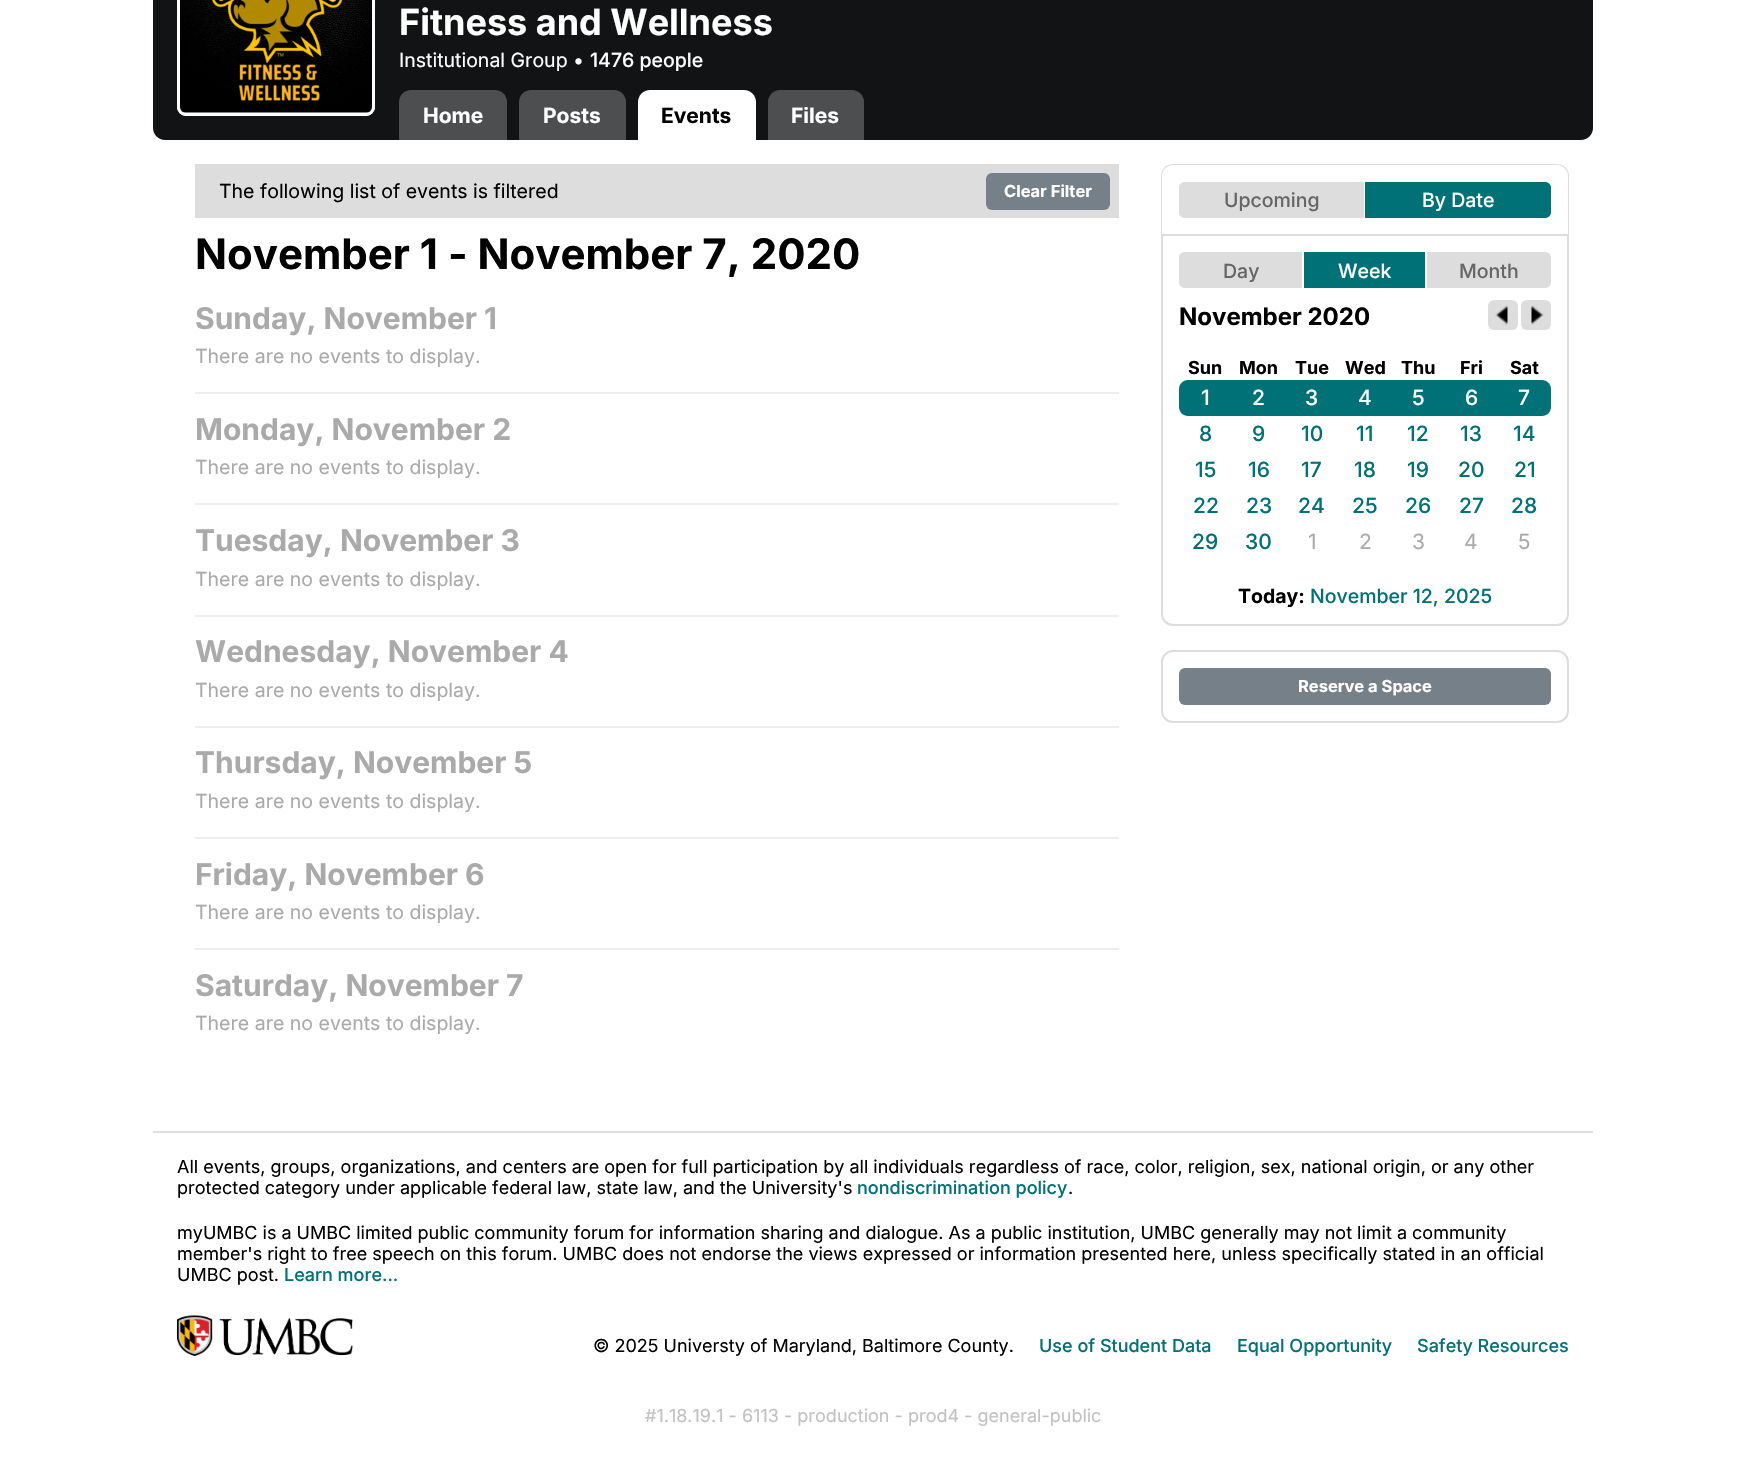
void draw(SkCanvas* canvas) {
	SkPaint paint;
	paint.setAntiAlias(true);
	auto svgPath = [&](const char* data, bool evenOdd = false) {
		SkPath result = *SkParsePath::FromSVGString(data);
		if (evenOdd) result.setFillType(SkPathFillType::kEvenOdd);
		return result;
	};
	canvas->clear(0xffffffff);
	paint.setColor(0xff111315);
	canvas->drawRect(SkRect::MakeXYWH(153, 0, 1440, 81), paint);
	canvas->drawPath(svgPath("M153 81H1593V128C1593 134.5 1587.5 140 1581 140H165C158.5 140 153 134.5 153 128Z"), paint);
	paint.setColor(0xffffffff);
	canvas->drawRoundRect(SkRect::MakeXYWH(177, -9, 198, 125), 9, 9, paint);
	canvas->drawImageRect(SkImages::DeferredFromEncodedData(SkData::MakeFromFileName("img1.png")), SkRect::MakeXYWH(180, 0, 192, 113), SkSamplingOptions());
	paint.setStroke(true);
	paint.setStrokeWidth(3);
	canvas->drawRoundRect(SkRect::MakeXYWH(178.5, -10.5, 195, 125), 7.5, 7.5, paint);
	SkFont f1(fontMgr->matchFamilyStyle("Inter", SkFontStyle::Bold()), 36);
	f1.setSubpixel(true);
	paint.setStroke(false);
	canvas->drawString("Fitness and Wellness", 399, 35, f1, paint);
	SkFont f2(fontMgr->matchFamilyStyle("Inter", SkFontStyle::Normal()), 19.5);
	f2.setSubpixel(true);
	canvas->drawString("Institutional Group •", 399, 67, f2, paint);
	SkFont f3(fontMgr->matchFamilyStyle("Inter", SkFontStyle(500, SkFontStyle::kNormal_Width, SkFontStyle::kUpright_Slant)), 19.5);
	f3.setSubpixel(true);
	canvas->drawString("1476 people", 590, 67, f3, paint);
	paint.setColor(0xff4d4e50);
	canvas->drawPath(svgPath("M411 90H495C501.5 90 507 95.5 507 102V140H399V102C399 95.5 404.5 90 411 90Z"), paint);
	SkFont f4(fontMgr->matchFamilyStyle("Inter", SkFontStyle::Bold()), 21);
	f4.setSubpixel(true);
	paint.setColor(0xffffffff);
	canvas->drawString("Home", 423, 123, f4, paint);
	paint.setColor(0xff4d4e50);
	canvas->drawPath(svgPath("M531 90H614C620.5 90 626 95.5 626 102V140H519V102C519 95.5 524.5 90 531 90Z"), paint);
	paint.setColor(0xffffffff);
	canvas->drawString("Posts", 543, 123, f4, paint);
	canvas->drawPath(svgPath("M650 90H744C750.5 90 756 95.5 756 102V140H638V102C638 95.5 643.5 90 650 90Z"), paint);
	paint.setColor(0xff000000);
	canvas->drawString("Events", 661, 123, f4, paint);
	paint.setColor(0xff4d4e50);
	canvas->drawPath(svgPath("M780 90H852C858.5 90 864 95.5 864 102V140H768V102C768 95.5 773.5 90 780 90Z"), paint);
	paint.setColor(0xffffffff);
	canvas->drawString("Files", 791, 123, f4, paint);
	paint.setColor(0xffdddddd);
	canvas->drawRect(SkRect::MakeXYWH(195, 164, 924, 54), paint);
	paint.setColor(0xff000000);
	canvas->drawString("The following list of events is filtered", 219, 198, f2, paint);
	paint.setColor(0xff768089);
	canvas->drawRoundRect(SkRect::MakeXYWH(986, 173, 124, 37), 6, 6, paint);
	SkFont f5(fontMgr->matchFamilyStyle("Inter", SkFontStyle::Bold()), 16.5);
	f5.setSubpixel(true);
	paint.setColor(0xffffffff);
	canvas->drawString("Clear Filter", 1004, 197, f5, paint);
	SkFont f6(fontMgr->matchFamilyStyle("Inter", SkFontStyle::Bold()), 42);
	f6.setSubpixel(true);
	paint.setColor(0xff000000);
	canvas->drawString("November 1 - November 7, 2020", 195, 269, f6, paint);
	SkFont f7(fontMgr->matchFamilyStyle("Inter", SkFontStyle::Bold()), 30);
	f7.setSubpixel(true);
	paint.setColor(0xffaaaaaa);
	canvas->drawString("Sunday, November 1", 195, 329, f7, paint);
	canvas->drawString("There are no events to display.", 195, 363, f2, paint);
	paint.setColor(0xffeeeeee);
	canvas->drawRect(SkRect::MakeXYWH(195, 392, 924, 2), paint);
	paint.setColor(0xffaaaaaa);
	canvas->drawString("Monday, November 2", 195, 440, f7, paint);
	canvas->drawString("There are no events to display.", 195, 474, f2, paint);
	paint.setColor(0xffeeeeee);
	canvas->drawRect(SkRect::MakeXYWH(195, 503, 924, 2), paint);
	paint.setColor(0xffaaaaaa);
	canvas->drawString("Tuesday, November 3", 195, 551, f7, paint);
	canvas->drawString("There are no events to display.", 195, 586, f2, paint);
	paint.setColor(0xffeeeeee);
	canvas->drawRect(SkRect::MakeXYWH(195, 615, 924, 2), paint);
	paint.setColor(0xffaaaaaa);
	canvas->drawString("Wednesday, November 4", 195, 662, f7, paint);
	canvas->drawString("There are no events to display.", 195, 697, f2, paint);
	paint.setColor(0xffeeeeee);
	canvas->drawRect(SkRect::MakeXYWH(195, 726, 924, 2), paint);
	paint.setColor(0xffaaaaaa);
	canvas->drawString("Thursday, November 5", 195, 773, f7, paint);
	canvas->drawString("There are no events to display.", 195, 808, f2, paint);
	paint.setColor(0xffeeeeee);
	canvas->drawRect(SkRect::MakeXYWH(195, 837, 924, 2), paint);
	paint.setColor(0xffaaaaaa);
	canvas->drawString("Friday, November 6", 195, 885, f7, paint);
	canvas->drawString("There are no events to display.", 195, 919, f2, paint);
	paint.setColor(0xffeeeeee);
	canvas->drawRect(SkRect::MakeXYWH(195, 948, 924, 2), paint);
	paint.setColor(0xffaaaaaa);
	canvas->drawString("Saturday, November 7", 195, 996, f7, paint);
	canvas->drawString("There are no events to display.", 195, 1030, f2, paint);
	paint.setColor(0xffdddddd);
	canvas->drawPath(svgPath("M1173 164H1557C1564 164 1569 169 1569 176V234H1161V176C1161 169 1166 164 1173 164ZM1173 165H1557C1563 165 1568 170 1568 176V234H1162V176C1162 170 1167 165 1173 165Z", true), paint);
	canvas->drawPath(svgPath("M1185 182H1365V218H1185C1181.5 218 1179 215.5 1179 212V188C1179 184.5 1181.5 182 1185 182Z"), paint);
	paint.setColor(0xff666666);
	canvas->drawString("Upcoming", 1224, 207, f3, paint);
	paint.setColor(0xffffffff);
	canvas->drawRect(SkRect::MakeXYWH(1364, 182, 1, 36), paint);
	paint.setColor(0xff007176);
	canvas->drawPath(svgPath("M1365 182H1545C1548.5 182 1551 184.5 1551 188V212C1551 215.5 1548.5 218 1545 218H1365Z"), paint);
	paint.setColor(0xffffffff);
	canvas->drawString("By Date", 1422, 207, f3, paint);
	paint.setStroke(true);
	paint.setStrokeWidth(2);
	paint.setColor(0xffdddddd);
	canvas->drawPath(svgPath("M1162 235H1568V614C1568 620 1563 625 1557 625H1173C1167 625 1162 620 1162 614Z"), paint);
	paint.setStroke(false);
	canvas->drawPath(svgPath("M1185 252H1304V288H1185C1181.5 288 1179 285.5 1179 282V258C1179 254.5 1181.5 252 1185 252Z"), paint);
	paint.setColor(0xff666666);
	canvas->drawString("Day", 1223, 278, f3, paint);
	paint.setColor(0xffffffff);
	canvas->drawRect(SkRect::MakeXYWH(1302, 252, 2, 36), paint);
	paint.setColor(0xff007176);
	canvas->drawRect(SkRect::MakeXYWH(1304, 252, 121, 36), paint);
	paint.setColor(0xffffffff);
	canvas->drawString("Week", 1338, 278, f3, paint);
	paint.setColor(0xffdddddd);
	canvas->drawPath(svgPath("M1427 252H1545C1548.5 252 1551 254.5 1551 258V282C1551 285.5 1548.5 288 1545 288H1427Z"), paint);
	paint.setColor(0xff666666);
	canvas->drawString("Month", 1459, 278, f3, paint);
	SkFont f8(fontMgr->matchFamilyStyle("Inter", SkFontStyle::Bold()), 24);
	f8.setSubpixel(true);
	paint.setColor(0xff000000);
	canvas->drawString("November 2020", 1179, 325, f8, paint);
	paint.setColor(0xffdddddd);
	canvas->drawRoundRect(SkRect::MakeXYWH(1488, 300, 30, 30), 6, 6, paint);
	canvas->drawImageRect(SkImages::DeferredFromEncodedData(SkData::MakeFromFileName("img2.png")), SkRect::MakeXYWH(1495, 305, 13, 20), SkSamplingOptions());
	canvas->drawRoundRect(SkRect::MakeXYWH(1521, 300, 30, 30), 6, 6, paint);
	canvas->drawImageRect(SkImages::DeferredFromEncodedData(SkData::MakeFromFileName("img3.png")), SkRect::MakeXYWH(1531, 305, 13, 20), SkSamplingOptions());
	SkFont f9(fontMgr->matchFamilyStyle("Inter", SkFontStyle::Bold()), 18);
	f9.setSubpixel(true);
	paint.setColor(0xff000000);
	canvas->drawString("Sun", 1188, 374, f9, paint);
	canvas->drawString("Mon", 1239, 374, f9, paint);
	canvas->drawString("Tue", 1295, 374, f9, paint);
	canvas->drawString("Wed", 1345, 374, f9, paint);
	canvas->drawString("Thu", 1401, 374, f9, paint);
	canvas->drawString("Fri", 1460, 374, f9, paint);
	canvas->drawString("Sat", 1510, 374, f9, paint);
	paint.setColor(0xff007176);
	canvas->drawPath(svgPath("M1188 380H1232V416H1188C1183 416 1179 412 1179 407V389C1179 384 1183 380 1188 380Z"), paint);
	SkFont f10(fontMgr->matchFamilyStyle("Inter", SkFontStyle(500, SkFontStyle::kNormal_Width, SkFontStyle::kUpright_Slant)), 21);
	f10.setSubpixel(true);
	paint.setColor(0xffffffff);
	canvas->drawString("1", 1201, 405, f10, paint);
	paint.setColor(0xff007176);
	canvas->drawRect(SkRect::MakeXYWH(1232, 380, 267, 36), paint);
	paint.setColor(0xffffffff);
	canvas->drawString("2", 1252, 405, f10, paint);
	canvas->drawString("3", 1305, 405, f10, paint);
	canvas->drawString("4", 1358, 405, f10, paint);
	canvas->drawString("5", 1412, 405, f10, paint);
	canvas->drawString("6", 1465, 405, f10, paint);
	paint.setColor(0xff007176);
	canvas->drawPath(svgPath("M1499 380H1542C1547 380 1551 384 1551 389V407C1551 412 1547 416 1542 416H1499Z"), paint);
	paint.setColor(0xffffffff);
	canvas->drawString("7", 1518, 405, f10, paint);
	paint.setColor(0xff007176);
	canvas->drawString("8", 1199, 441, f10, paint);
	canvas->drawString("9", 1252, 441, f10, paint);
	canvas->drawString("10", 1301, 441, f10, paint);
	canvas->drawString("11", 1356, 441, f10, paint);
	canvas->drawString("12", 1407, 441, f10, paint);
	canvas->drawString("13", 1460, 441, f10, paint);
	canvas->drawString("14", 1513, 441, f10, paint);
	canvas->drawString("15", 1195, 477, f10, paint);
	canvas->drawString("16", 1248, 477, f10, paint);
	canvas->drawString("17", 1301, 477, f10, paint);
	canvas->drawString("18", 1354, 477, f10, paint);
	canvas->drawString("19", 1407, 477, f10, paint);
	canvas->drawString("20", 1458, 477, f10, paint);
	canvas->drawString("21", 1514, 477, f10, paint);
	canvas->drawString("22", 1193, 513, f10, paint);
	canvas->drawString("23", 1246, 513, f10, paint);
	canvas->drawString("24", 1298, 513, f10, paint);
	canvas->drawString("25", 1352, 513, f10, paint);
	canvas->drawString("26", 1405, 513, f10, paint);
	canvas->drawString("27", 1459, 513, f10, paint);
	canvas->drawString("28", 1511, 513, f10, paint);
	canvas->drawString("29", 1192, 549, f10, paint);
	canvas->drawString("30", 1245, 549, f10, paint);
	SkFont f11(fontMgr->matchFamilyStyle("Inter", SkFontStyle::Normal()), 21);
	f11.setSubpixel(true);
	paint.setColor(0xffaaaaaa);
	canvas->drawString("1", 1308, 549, f11, paint);
	canvas->drawString("2", 1359, 549, f11, paint);
	canvas->drawString("3", 1412, 549, f11, paint);
	canvas->drawString("4", 1464, 549, f11, paint);
	canvas->drawString("5", 1518, 549, f11, paint);
	SkFont f12(fontMgr->matchFamilyStyle("Inter", SkFontStyle::Bold()), 19.5);
	f12.setSubpixel(true);
	paint.setColor(0xff000000);
	canvas->drawString("Today:", 1238, 603, f12, paint);
	paint.setColor(0xff007176);
	canvas->drawString("November 12, 2025", 1310, 603, f3, paint);
	paint.setStroke(true);
	paint.setColor(0xffdddddd);
	canvas->drawRoundRect(SkRect::MakeXYWH(1162, 651, 406, 71), 11, 11, paint);
	paint.setStroke(false);
	paint.setColor(0xff768089);
	canvas->drawRoundRect(SkRect::MakeXYWH(1179, 668, 372, 37), 6, 6, paint);
	paint.setColor(0xffffffff);
	canvas->drawString("Reserve a Space", 1298, 692, f5, paint);
	paint.setColor(0xffe0e0e0);
	canvas->drawRect(SkRect::MakeXYWH(153, 1131, 1440, 2), paint);
	SkFont f13(fontMgr->matchFamilyStyle("Inter", SkFontStyle::Normal()), 18);
	f13.setSubpixel(true);
	paint.setColor(0xff000000);
	canvas->drawString("All events, groups, organizations, and centers are open for full participation by all individuals regardless of race, color, religion, sex, national origin, or any other", 177, 1173, f13, paint);
	canvas->drawString("protected category under applicable federal law, state law, and the University's", 177, 1194, f13, paint);
	SkFont f14(fontMgr->matchFamilyStyle("Inter", SkFontStyle(500, SkFontStyle::kNormal_Width, SkFontStyle::kUpright_Slant)), 18);
	f14.setSubpixel(true);
	paint.setColor(0xff007176);
	canvas->drawString("nondiscrimination policy", 857, 1194, f14, paint);
	paint.setColor(0xff000000);
	canvas->drawString(".", 1068, 1194, f13, paint);
	canvas->drawString("myUMBC is a UMBC limited public community forum for information sharing and dialogue. As a public institution, UMBC generally may not limit a community", 177, 1239, f13, paint);
	canvas->drawString("member's right to free speech on this forum. UMBC does not endorse the views expressed or information presented here, unless specifically stated in an official", 177, 1260, f13, paint);
	canvas->drawString("UMBC post.", 177, 1281, f13, paint);
	paint.setColor(0xff007176);
	canvas->drawString("Learn more...", 284, 1281, f14, paint);
	canvas->drawImageRect(SkImages::DeferredFromEncodedData(SkData::MakeFromFileName("img4.png")), SkRect::MakeXYWH(177, 1315, 176, 41), SkSamplingOptions());
	paint.setColor(0xff000000);
	canvas->drawString("© 2025 Universty of Maryland, Baltimore County.", 593, 1352, f13, paint);
	paint.setColor(0xff007176);
	canvas->drawString("Use of Student Data", 1039, 1352, f14, paint);
	canvas->drawString("Equal Opportunity", 1237, 1352, f14, paint);
	canvas->drawString("Safety Resources", 1417, 1352, f14, paint);
	paint.setColor(0xffc2c2c2);
	canvas->drawString("#1.18.19.1 - 6113 - production - prod4 - general-public", 645, 1422, f13, paint);
}
